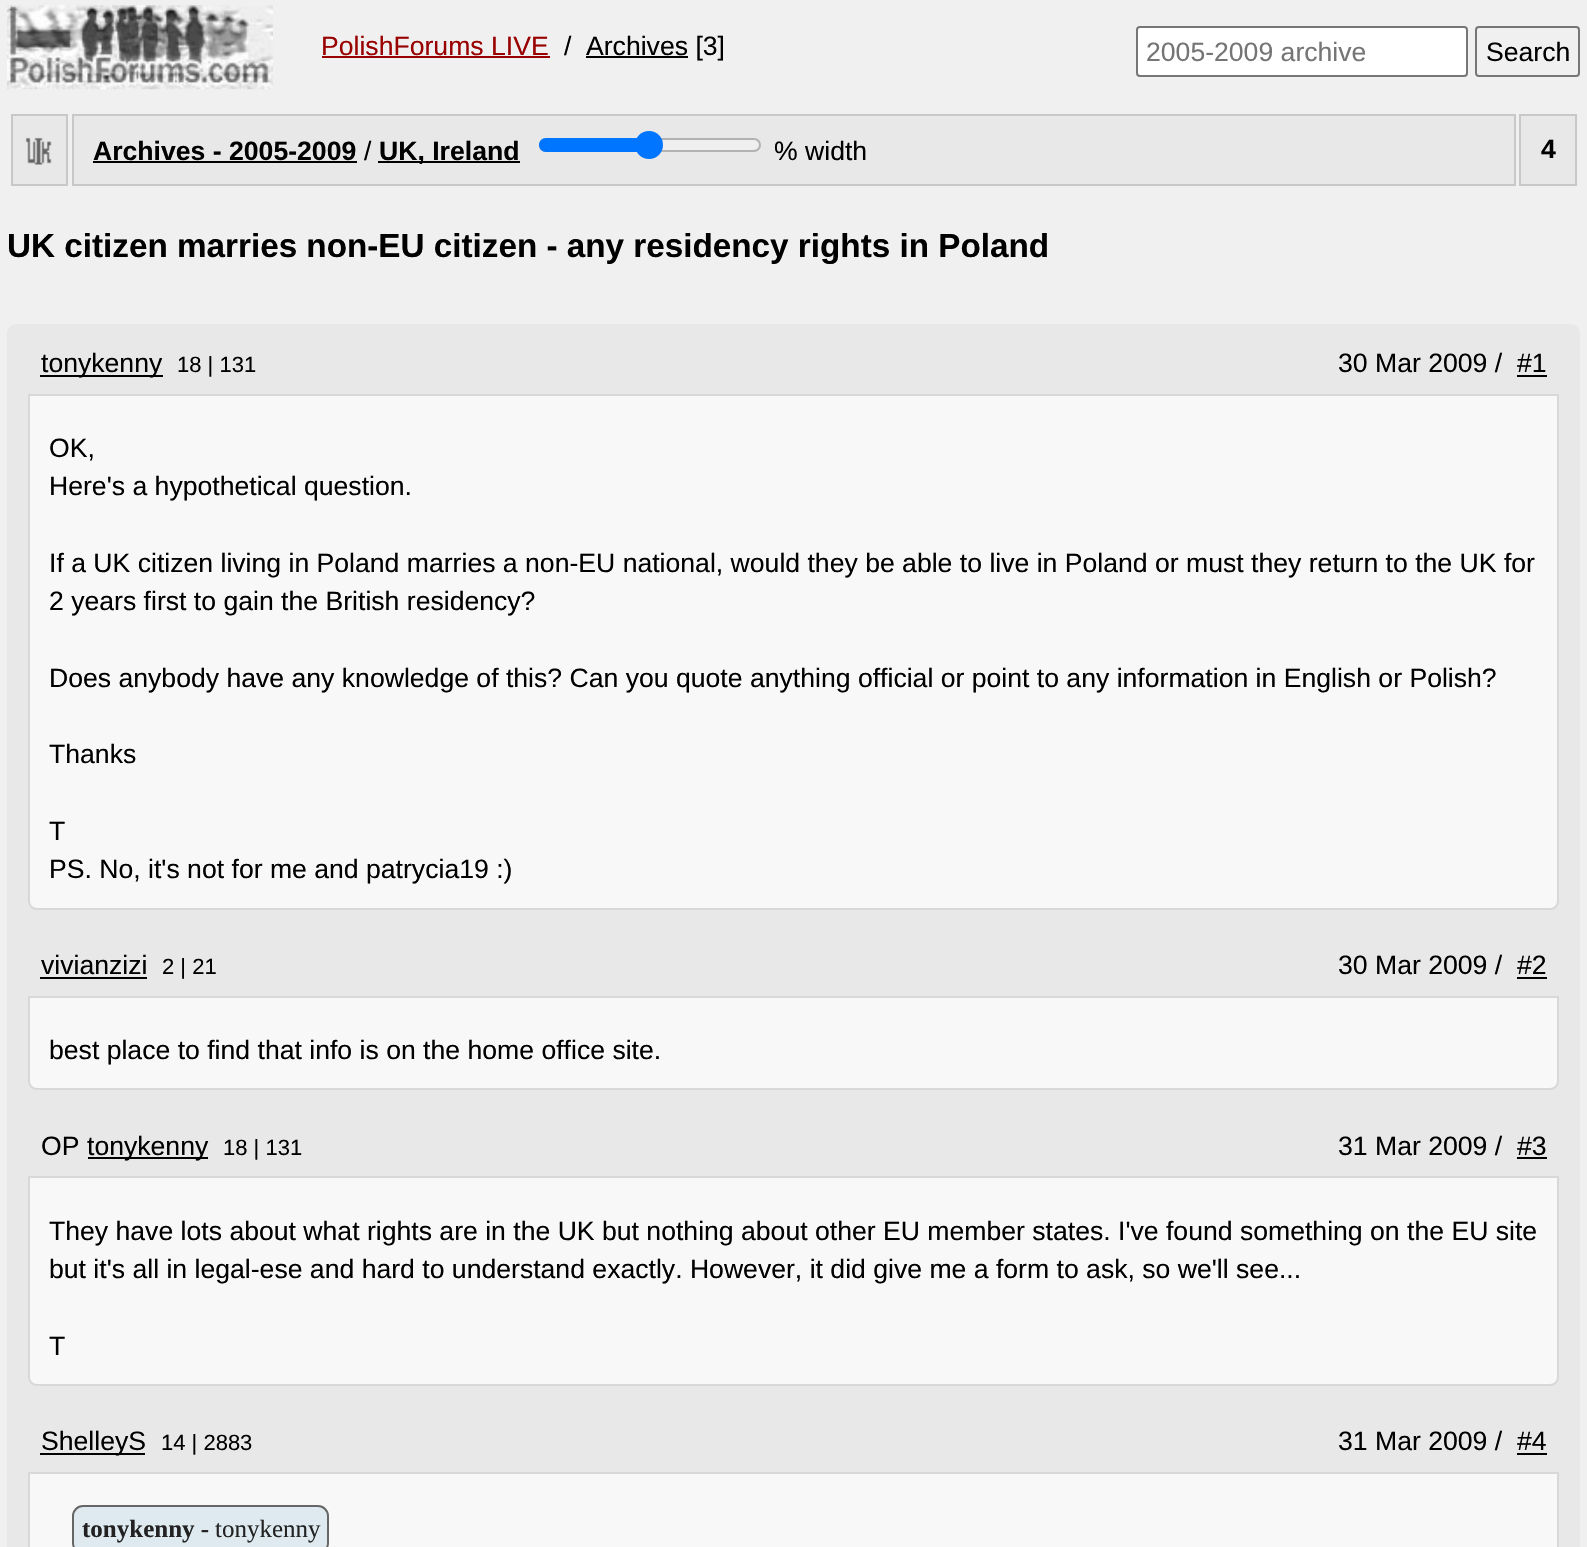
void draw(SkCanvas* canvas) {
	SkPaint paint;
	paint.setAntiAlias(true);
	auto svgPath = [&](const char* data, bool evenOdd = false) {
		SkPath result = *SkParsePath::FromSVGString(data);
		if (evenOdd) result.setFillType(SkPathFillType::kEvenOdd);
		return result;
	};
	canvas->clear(0xfff0f0f0);
	canvas->drawImageRect(SkImages::DeferredFromEncodedData(SkData::MakeFromFileName("img1.png")), SkRect::MakeXYWH(7, 5, 266, 85), SkSamplingOptions());
	SkFont f1(fontMgr->matchFamilyStyle("Liberation Sans", SkFontStyle::Normal()), 26.6);
	f1.setSubpixel(true);
	paint.setColor(0xff990000);
	canvas->drawString("PolishForums LIVE", 321, 55, f1, paint);
	canvas->drawRect(SkRect::MakeXYWH(322, 56, 228, 2), paint);
	paint.setColor(0xff000000);
	canvas->drawString("/", 564, 55, f1, paint);
	canvas->drawRect(SkRect::MakeXYWH(586, 56, 102, 2), paint);
	canvas->drawString("Archives [3]", 586, 55, f1, paint);
	paint.setColor(0xffffffff);
	canvas->drawRoundRect(SkRect::MakeXYWH(1137, 27, 330, 49), 3, 3, paint);
	paint.setStroke(true);
	paint.setStrokeWidth(2);
	paint.setColor(0xff767676);
	canvas->drawRoundRect(SkRect::MakeXYWH(1137, 27, 330, 49), 3, 3, paint);
	paint.setStroke(false);
	paint.setColor(0xff757575);
	canvas->drawString("2005-2009 archive", 1146, 61, f1, paint);
	paint.setStroke(true);
	paint.setColor(0xff767676);
	canvas->drawRoundRect(SkRect::MakeXYWH(1476, 27, 103, 49), 3, 3, paint);
	paint.setStroke(false);
	paint.setColor(0xff000000);
	canvas->drawString("Search", 1486, 61, f1, paint);
	paint.setColor(0xffe8e8e8);
	canvas->drawRect(SkRect::MakeXYWH(12, 115, 55, 70), paint);
	paint.setStroke(true);
	paint.setColor(0xffc8c8c8);
	canvas->drawRect(SkRect::MakeXYWH(12, 115, 55, 70), paint);
	canvas->drawImageRect(SkImages::DeferredFromEncodedData(SkData::MakeFromFileName("img2.png")), SkRect::MakeXYWH(25, 137, 27, 28), SkSamplingOptions());
	paint.setStroke(false);
	paint.setColor(0xffe8e8e8);
	canvas->drawRect(SkRect::MakeXYWH(73, 115, 1442, 70), paint);
	paint.setStroke(true);
	paint.setColor(0xffc8c8c8);
	canvas->drawRect(SkRect::MakeXYWH(73, 115, 1442, 70), paint);
	SkFont f2(fontMgr->matchFamilyStyle("Liberation Sans", SkFontStyle::Bold()), 26.6);
	f2.setSubpixel(true);
	paint.setStroke(false);
	paint.setColor(0xff000000);
	canvas->drawString("Archives - 2005-2009", 93, 160, f2, paint);
	canvas->drawRect(SkRect::MakeXYWH(93, 161, 264, 2), paint);
	canvas->drawString("/", 364, 160, f1, paint);
	canvas->drawRect(SkRect::MakeXYWH(378, 161, 142, 2), paint);
	canvas->drawString("UK, Ireland", 379, 160, f2, paint);
	paint.setColor(0xffefefef);
	canvas->drawRoundRect(SkRect::MakeXYWH(540, 139, 220, 12), 6, 6, paint);
	paint.setStroke(true);
	paint.setColor(0xffb2b2b2);
	canvas->drawRoundRect(SkRect::MakeXYWH(540, 139, 220, 12), 6, 6, paint);
	paint.setStroke(false);
	paint.setColor(0xff0075ff);
	canvas->drawPath(svgPath("M546 138H649V152H546C542 152 539 149 539 145C539 141 542 138 546 138Z"), paint);
	canvas->drawCircle(649, 145, 14, paint);
	paint.setColor(0xff000000);
	canvas->drawString("% width", 774, 160, f1, paint);
	paint.setColor(0xffe8e8e8);
	canvas->drawRect(SkRect::MakeXYWH(1520, 115, 56, 70), paint);
	paint.setStroke(true);
	paint.setColor(0xffc8c8c8);
	canvas->drawRect(SkRect::MakeXYWH(1520, 115, 56, 70), paint);
	paint.setStroke(false);
	paint.setColor(0xff000000);
	canvas->drawString("4", 1541, 158, f2, paint);
	SkFont f3(fontMgr->matchFamilyStyle("Liberation Sans", SkFontStyle::Bold()), 33.25);
	f3.setSubpixel(true);
	canvas->drawString("UK citizen marries non-EU citizen - any residency rights in Poland", 7, 257, f3, paint);
	paint.setColor(0xffe8e8e8);
	canvas->drawRoundRect(SkRect::MakeXYWH(7, 324, 1573, 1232), 9, 9, paint);
	paint.setColor(0xff000000);
	canvas->drawRect(SkRect::MakeXYWH(40, 375, 123, 2), paint);
	canvas->drawString("tonykenny", 41, 372, f1, paint);
	SkFont f4(fontMgr->matchFamilyStyle("Liberation Sans", SkFontStyle::Normal()), 22);
	f4.setSubpixel(true);
	canvas->drawString("18 | 131", 177, 372, f4, paint);
	canvas->drawString("30 Mar 2009 /", 1338, 372, f1, paint);
	canvas->drawString("#1", 1517, 372, f1, paint);
	canvas->drawRect(SkRect::MakeXYWH(1517, 375, 30, 2), paint);
	paint.setColor(0xfff8f8f8);
	canvas->drawPath(svgPath("M29 395H1558V901C1558 905.5 1554.5 909 1550 909H37C32.5 909 29 905.5 29 901Z"), paint);
	paint.setStroke(true);
	paint.setColor(0xffd8d8d8);
	canvas->drawPath(svgPath("M29 395H1558V901C1558 905.5 1554.5 909 1550 909H37C32.5 909 29 905.5 29 901Z"), paint);
	paint.setStroke(false);
	paint.setColor(0xff000000);
	canvas->drawString("OK,", 49, 457, f1, paint);
	canvas->drawString("Here's a hypothetical question.", 49, 495, f1, paint);
	canvas->drawString("If a UK citizen living in Poland marries a non-EU national, would they be able to live in Poland or must they return to the UK for", 49, 572, f1, paint);
	canvas->drawString("2 years first to gain the British residency?", 49, 610, f1, paint);
	canvas->drawString("Does anybody have any knowledge of this? Can you quote anything official or point to any information in English or Polish?", 49, 687, f1, paint);
	canvas->drawString("Thanks", 49, 763, f1, paint);
	canvas->drawString("T", 49, 840, f1, paint);
	canvas->drawString("PS. No, it's not for me and patrycia19 :)", 49, 878, f1, paint);
	canvas->drawString("vivianzizi", 41, 974, f1, paint);
	canvas->drawRect(SkRect::MakeXYWH(40, 977, 107, 2), paint);
	canvas->drawString("2 | 21", 162, 974, f4, paint);
	canvas->drawString("30 Mar 2009 /", 1338, 974, f1, paint);
	canvas->drawString("#2", 1517, 974, f1, paint);
	canvas->drawRect(SkRect::MakeXYWH(1517, 977, 30, 2), paint);
	paint.setColor(0xfff8f8f8);
	canvas->drawPath(svgPath("M29 997H1558V1081C1558 1085.5 1554.5 1089 1550 1089H37C32.5 1089 29 1085.5 29 1081Z"), paint);
	paint.setStroke(true);
	paint.setColor(0xffd8d8d8);
	canvas->drawPath(svgPath("M29 997H1558V1081C1558 1085.5 1554.5 1089 1550 1089H37C32.5 1089 29 1085.5 29 1081Z"), paint);
	paint.setStroke(false);
	paint.setColor(0xff000000);
	canvas->drawString("best place to find that info is on the home office site.", 49, 1059, f1, paint);
	canvas->drawString("OP", 41, 1155, f1, paint);
	canvas->drawRect(SkRect::MakeXYWH(88, 1157, 120, 2), paint);
	canvas->drawString("tonykenny", 87, 1155, f1, paint);
	canvas->drawString("18 | 131", 223, 1155, f4, paint);
	canvas->drawString("31 Mar 2009 /", 1338, 1155, f1, paint);
	canvas->drawString("#3", 1517, 1155, f1, paint);
	canvas->drawRect(SkRect::MakeXYWH(1517, 1157, 30, 2), paint);
	paint.setColor(0xfff8f8f8);
	canvas->drawPath(svgPath("M29 1177H1558V1377C1558 1381.5 1554.5 1385 1550 1385H37C32.5 1385 29 1381.5 29 1377Z"), paint);
	paint.setStroke(true);
	paint.setColor(0xffd8d8d8);
	canvas->drawPath(svgPath("M29 1177H1558V1377C1558 1381.5 1554.5 1385 1550 1385H37C32.5 1385 29 1381.5 29 1377Z"), paint);
	paint.setStroke(false);
	paint.setColor(0xff000000);
	canvas->drawString("They have lots about what rights are in the UK but nothing about other EU member states. I've found something on the EU site", 49, 1240, f1, paint);
	canvas->drawString("but it's all in legal-ese and hard to understand exactly. However, it did give me a form to ask, so we'll see...", 49, 1278, f1, paint);
	canvas->drawString("T", 49, 1355, f1, paint);
	canvas->drawRect(SkRect::MakeXYWH(40, 1453, 105, 2), paint);
	canvas->drawString("ShelleyS", 41, 1450, f1, paint);
	canvas->drawString("14 | 2883", 161, 1450, f4, paint);
	canvas->drawString("31 Mar 2009 /", 1338, 1450, f1, paint);
	canvas->drawString("#4", 1517, 1450, f1, paint);
	canvas->drawRect(SkRect::MakeXYWH(1517, 1453, 30, 2), paint);
	paint.setColor(0xfff8f8f8);
	canvas->drawRect(SkRect::MakeXYWH(29, 1473, 1529, 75), paint);
	paint.setStroke(true);
	paint.setColor(0xffd8d8d8);
	canvas->drawRect(SkRect::MakeXYWH(29, 1473, 1529, 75), paint);
	paint.setStroke(false);
	paint.setColor(0xffdeeaef);
	canvas->drawRoundRect(SkRect::MakeXYWH(74, 1507, 253, 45), 9, 9, paint);
	paint.setStroke(true);
	paint.setColor(0xff666666);
	canvas->drawRoundRect(SkRect::MakeXYWH(73, 1506, 255, 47), 10, 10, paint);
	SkFont f5(fontMgr->matchFamilyStyle("Liberation Serif", SkFontStyle::Bold()), 25);
	f5.setSubpixel(true);
	paint.setStroke(false);
	paint.setColor(0xff222222);
	canvas->drawString("tonykenny -", 82, 1537, f5, paint);
	SkFont f6(fontMgr->matchFamilyStyle("Liberation Serif", SkFontStyle::Normal()), 25);
	f6.setSubpixel(true);
	canvas->drawString("tonykenny", 215, 1537, f6, paint);
}
